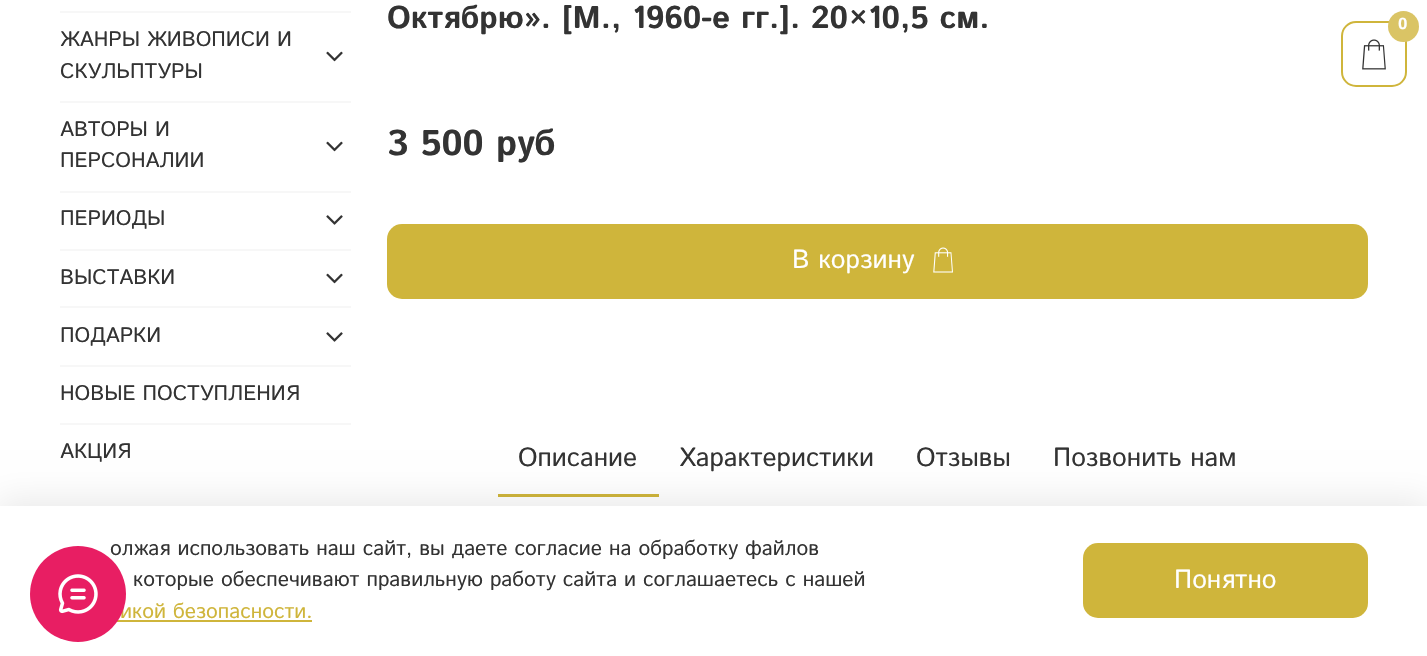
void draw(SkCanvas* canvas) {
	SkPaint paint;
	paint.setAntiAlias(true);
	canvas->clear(0xffffffff);
	paint.setColor(0xfff7f7f7);
	canvas->drawRect(SkRect::MakeXYWH(60, 11, 291, 2), paint);
	canvas->drawRect(SkRect::MakeXYWH(60, 101, 291, 2), paint);
	SkFont f1(fontMgr->matchFamilyStyle("Istok Web", SkFontStyle::Normal()), 21);
	f1.setSubpixel(true);
	paint.setColor(0xff333333);
	canvas->drawString("ЖАНРЫ ЖИВОПИСИ И", 60, 46, f1, paint);
	canvas->drawString("СКУЛЬПТУРЫ", 60, 78, f1, paint);
	canvas->drawImageRect(SkImages::DeferredFromEncodedData(SkData::MakeFromFileName("img1.png")), SkRect::MakeXYWH(326, 51, 17, 11), SkSamplingOptions());
	paint.setColor(0xfff7f7f7);
	canvas->drawRect(SkRect::MakeXYWH(60, 191, 291, 2), paint);
	paint.setColor(0xff333333);
	canvas->drawString("АВТОРЫ И", 60, 136, f1, paint);
	canvas->drawString("ПЕРСОНАЛИИ", 60, 167, f1, paint);
	canvas->drawImageRect(SkImages::DeferredFromEncodedData(SkData::MakeFromFileName("img1.png")), SkRect::MakeXYWH(326, 141, 17, 11), SkSamplingOptions());
	paint.setColor(0xfff7f7f7);
	canvas->drawRect(SkRect::MakeXYWH(60, 249, 291, 2), paint);
	paint.setColor(0xff333333);
	canvas->drawString("ПЕРИОДЫ", 60, 225, f1, paint);
	canvas->drawImageRect(SkImages::DeferredFromEncodedData(SkData::MakeFromFileName("img2.png")), SkRect::MakeXYWH(326, 215, 17, 10), SkSamplingOptions());
	paint.setColor(0xfff7f7f7);
	canvas->drawRect(SkRect::MakeXYWH(60, 306, 291, 2), paint);
	paint.setColor(0xff333333);
	canvas->drawString("ВЫСТАВКИ", 60, 284, f1, paint);
	canvas->drawImageRect(SkImages::DeferredFromEncodedData(SkData::MakeFromFileName("img1.png")), SkRect::MakeXYWH(326, 273, 17, 11), SkSamplingOptions());
	paint.setColor(0xfff7f7f7);
	canvas->drawRect(SkRect::MakeXYWH(60, 365, 291, 2), paint);
	paint.setColor(0xff333333);
	canvas->drawString("ПОДАРКИ", 60, 342, f1, paint);
	canvas->drawImageRect(SkImages::DeferredFromEncodedData(SkData::MakeFromFileName("img2.png")), SkRect::MakeXYWH(326, 332, 17, 10), SkSamplingOptions());
	paint.setColor(0xfff7f7f7);
	canvas->drawRect(SkRect::MakeXYWH(60, 423, 291, 2), paint);
	paint.setColor(0xff333333);
	canvas->drawString("НОВЫЕ ПОСТУПЛЕНИЯ", 60, 400, f1, paint);
	canvas->drawString("АКЦИЯ", 60, 458, f1, paint);
	SkFont f2(fontMgr->matchFamilyStyle("Istok Web", SkFontStyle::Bold()), 31.5);
	f2.setSubpixel(true);
	canvas->drawString("Октябрю». [М., 1960-е гг.]. 20×10,5 см.", 387, 28, f2, paint);
	SkFont f3(fontMgr->matchFamilyStyle("Istok Web", SkFontStyle::Bold()), 36);
	f3.setSubpixel(true);
	canvas->drawString("3 500 руб", 387, 155, f3, paint);
	paint.setColor(0xffcfb53b);
	canvas->drawRoundRect(SkRect::MakeXYWH(387, 224, 981, 75), 15, 15, paint);
	SkFont f4(fontMgr->matchFamilyStyle("Istok Web", SkFontStyle::Normal()), 26.25);
	f4.setSubpixel(true);
	paint.setColor(0xffffffff);
	canvas->drawString("В корзину", 792, 268, f4, paint);
	canvas->drawImageRect(SkImages::DeferredFromEncodedData(SkData::MakeFromFileName("img3.png")), SkRect::MakeXYWH(933, 247, 20, 26), SkSamplingOptions());
	paint.setColor(0xffcfb53b);
	canvas->drawRect(SkRect::MakeXYWH(498, 494, 161, 3), paint);
	paint.setColor(0xff333333);
	canvas->drawString("Описание", 518, 466, f4, paint);
	canvas->drawString("Характеристики", 679, 466, f4, paint);
	canvas->drawString("Отзывы", 916, 466, f4, paint);
	canvas->drawString("Позвонить нам", 1053, 466, f4, paint);
	paint.setColor(0x17000000);
	paint.setMaskFilter(SkMaskFilter::MakeBlur(kNormal_SkBlurStyle, 17));
	canvas->drawRect(SkRect::MakeXYWH(-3, 501, 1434, 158), paint);
	paint.setMaskFilter(nullptr);
	paint.setColor(0xffffffff);
	canvas->drawRect(SkRect::MakeXYWH(0, 506, 1427, 150), paint);
	paint.setColor(0xff333333);
	canvas->drawString("олжая использовать наш сайт, вы даете согласие на обработку файлов", 110, 555, f1, paint);
	paint.setColor(0xffcfb53b);
	canvas->drawString("икой безопасности.", 120, 618, f1, paint);
	canvas->drawRect(SkRect::MakeXYWH(117, 620, 195, 2), paint);
	paint.setColor(0xffe81e63);
	canvas->drawCircle(78, 594, 48, paint);
	canvas->drawImageRect(SkImages::DeferredFromEncodedData(SkData::MakeFromFileName("img4.png")), SkRect::MakeXYWH(58, 574, 40, 40), SkSamplingOptions());
	paint.setStroke(true);
	paint.setStrokeWidth(2);
	paint.setColor(0xffcfb53b);
	canvas->drawRoundRect(SkRect::MakeXYWH(1342, 22, 64, 64), 14, 14, paint);
	paint.setStroke(false);
	paint.setColor(0xffdac465);
	canvas->drawCircle(1403.5, 26.5, 15.5, paint);
	SkFont f5(fontMgr->matchFamilyStyle("Istok Web", SkFontStyle::Bold()), 16);
	f5.setSubpixel(true);
	paint.setColor(0xffffffff);
	canvas->drawString("0", 1398, 29, f5, paint);
	canvas->drawImageRect(SkImages::DeferredFromEncodedData(SkData::MakeFromFileName("img5.png")), SkRect::MakeXYWH(1362, 39, 24, 31), SkSamplingOptions());
	paint.setColor(0xff333333);
	canvas->drawString("которые обеспечивают правильную работу сайта и соглашаетесь с нашей", 133, 586, f1, paint);
	paint.setColor(0xffcfb53b);
	canvas->drawRoundRect(SkRect::MakeXYWH(1083, 543, 285, 75), 15, 15, paint);
	paint.setColor(0xffffffff);
	canvas->drawString("Понятно", 1174, 588, f4, paint);
}
